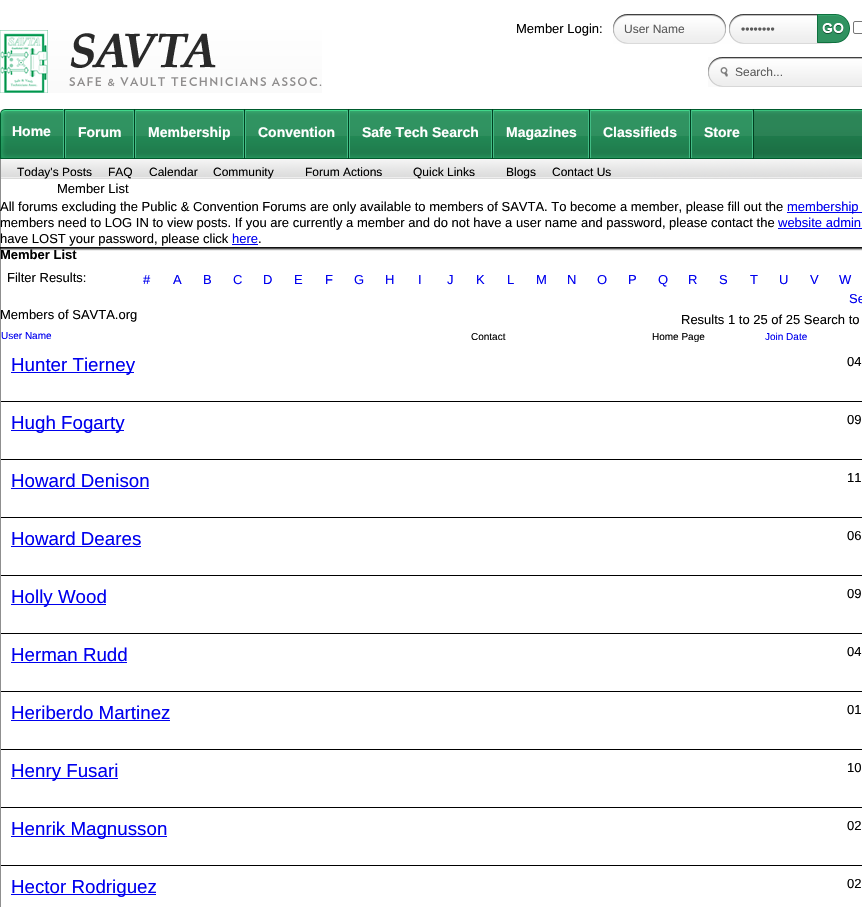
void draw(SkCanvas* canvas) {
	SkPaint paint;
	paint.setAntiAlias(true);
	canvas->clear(0xffffffff);
	canvas->drawImageRect(SkImages::DeferredFromEncodedData(SkData::MakeFromFileName("img1.png")), SkRect::MakeXYWH(0, 30, 322, 63), SkSamplingOptions());
	SkFont f1(fontMgr->matchFamilyStyle("Liberation Sans", SkFontStyle::Normal()), 13);
	f1.setSubpixel(true);
	paint.setColor(0xff000000);
	canvas->drawString("Member Login:", 516, 33, f1, paint);
	canvas->drawImageRect(SkImages::DeferredFromEncodedData(SkData::MakeFromFileName("img2.png")), SkRect::MakeXYWH(613, 14, 237, 30), SkSamplingOptions());
	SkFont f2(fontMgr->matchFamilyStyle("Liberation Sans", SkFontStyle::Normal()), 12);
	f2.setSubpixel(true);
	paint.setColor(0xff5b5b5b);
	canvas->drawString("User Name", 624, 33, f2, paint);
	canvas->drawString("••••••••", 741, 33, f2, paint);
	paint.setStroke(true);
	paint.setStrokeWidth(1);
	paint.setColor(0xff767676);
	canvas->drawRoundRect(SkRect::MakeXYWH(853.5, 21.5, 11, 12), 1.5, 1.5, paint);
	canvas->drawImageRect(SkImages::DeferredFromEncodedData(SkData::MakeFromFileName("img3.png")), SkRect::MakeXYWH(708, 57, 154, 30), SkSamplingOptions());
	paint.setStroke(false);
	paint.setColor(0xff5b5b5b);
	canvas->drawString("Search...", 735, 76, f2, paint);
	canvas->drawImageRect(SkImages::DeferredFromEncodedData(SkData::MakeFromFileName("img4.png")), SkRect::MakeXYWH(0, 109, 862, 50), SkSamplingOptions());
	paint.setColor(0xff004020);
	canvas->drawRect(SkRect::MakeXYWH(64, 109, 1, 50), paint);
	canvas->drawImageRect(SkImages::DeferredFromEncodedData(SkData::MakeFromFileName("img5.png")), SkRect::MakeXYWH(0, 109, 63, 49), SkSamplingOptions());
	paint.setColor(0xff42bc85);
	canvas->drawRect(SkRect::MakeXYWH(63, 109, 1, 49), paint);
	SkFont f3(fontMgr->matchFamilyStyle("Liberation Sans", SkFontStyle::Bold()), 14);
	f3.setSubpixel(true);
	paint.setColor(0xffffffff);
	canvas->drawString("Home", 12, 136, f3, paint);
	paint.setColor(0xff004020);
	canvas->drawRect(SkRect::MakeXYWH(134, 109, 1, 50), paint);
	canvas->drawImageRect(SkImages::DeferredFromEncodedData(SkData::MakeFromFileName("img6.png")), SkRect::MakeXYWH(66, 110, 67, 48), SkSamplingOptions());
	paint.setColor(0xff42bc85);
	canvas->drawRect(SkRect::MakeXYWH(133, 110, 1, 48), paint);
	canvas->drawRect(SkRect::MakeXYWH(65, 110, 1, 48), paint);
	paint.setColor(0xffffffff);
	canvas->drawString("Forum", 78, 137, f3, paint);
	paint.setColor(0xff004020);
	canvas->drawRect(SkRect::MakeXYWH(244, 109, 1, 50), paint);
	canvas->drawImageRect(SkImages::DeferredFromEncodedData(SkData::MakeFromFileName("img7.png")), SkRect::MakeXYWH(136, 110, 107, 48), SkSamplingOptions());
	paint.setColor(0xff42bc85);
	canvas->drawRect(SkRect::MakeXYWH(243, 110, 1, 48), paint);
	canvas->drawRect(SkRect::MakeXYWH(135, 110, 1, 48), paint);
	paint.setColor(0xffffffff);
	canvas->drawString("Membership", 148, 137, f3, paint);
	paint.setColor(0xff004020);
	canvas->drawRect(SkRect::MakeXYWH(348, 109, 1, 50), paint);
	canvas->drawImageRect(SkImages::DeferredFromEncodedData(SkData::MakeFromFileName("img8.png")), SkRect::MakeXYWH(246, 110, 101, 48), SkSamplingOptions());
	paint.setColor(0xff42bc85);
	canvas->drawRect(SkRect::MakeXYWH(347, 110, 1, 48), paint);
	canvas->drawRect(SkRect::MakeXYWH(245, 110, 1, 48), paint);
	paint.setColor(0xffffffff);
	canvas->drawString("Convention", 258, 137, f3, paint);
	paint.setColor(0xff004020);
	canvas->drawRect(SkRect::MakeXYWH(492, 109, 1, 50), paint);
	canvas->drawImageRect(SkImages::DeferredFromEncodedData(SkData::MakeFromFileName("img9.png")), SkRect::MakeXYWH(350, 110, 141, 48), SkSamplingOptions());
	paint.setColor(0xff42bc85);
	canvas->drawRect(SkRect::MakeXYWH(491, 110, 1, 48), paint);
	canvas->drawRect(SkRect::MakeXYWH(349, 110, 1, 48), paint);
	paint.setColor(0xffffffff);
	canvas->drawString("Safe Tech Search", 362, 137, f3, paint);
	paint.setColor(0xff004020);
	canvas->drawRect(SkRect::MakeXYWH(589, 109, 1, 50), paint);
	canvas->drawImageRect(SkImages::DeferredFromEncodedData(SkData::MakeFromFileName("img10.png")), SkRect::MakeXYWH(494, 110, 94, 48), SkSamplingOptions());
	paint.setColor(0xff42bc85);
	canvas->drawRect(SkRect::MakeXYWH(588, 110, 1, 48), paint);
	canvas->drawRect(SkRect::MakeXYWH(493, 110, 1, 48), paint);
	paint.setColor(0xffffffff);
	canvas->drawString("Magazines", 506, 137, f3, paint);
	paint.setColor(0xff004020);
	canvas->drawRect(SkRect::MakeXYWH(690, 109, 1, 50), paint);
	canvas->drawImageRect(SkImages::DeferredFromEncodedData(SkData::MakeFromFileName("img11.png")), SkRect::MakeXYWH(591, 110, 98, 48), SkSamplingOptions());
	paint.setColor(0xff42bc85);
	canvas->drawRect(SkRect::MakeXYWH(689, 110, 1, 48), paint);
	canvas->drawRect(SkRect::MakeXYWH(590, 110, 1, 48), paint);
	paint.setColor(0xffffffff);
	canvas->drawString("Classifieds", 603, 137, f3, paint);
	paint.setColor(0xff004020);
	canvas->drawRect(SkRect::MakeXYWH(753, 109, 1, 50), paint);
	canvas->drawImageRect(SkImages::DeferredFromEncodedData(SkData::MakeFromFileName("img12.png")), SkRect::MakeXYWH(692, 110, 60, 48), SkSamplingOptions());
	paint.setColor(0xff42bc85);
	canvas->drawRect(SkRect::MakeXYWH(752, 110, 1, 48), paint);
	canvas->drawRect(SkRect::MakeXYWH(691, 110, 1, 48), paint);
	paint.setColor(0xffffffff);
	canvas->drawString("Store", 704, 137, f3, paint);
	paint.setColor(0xff8f8f8f);
	canvas->drawRect(SkRect::MakeXYWH(0, 159, 1, 748), paint);
	canvas->drawImageRect(SkImages::DeferredFromEncodedData(SkData::MakeFromFileName("img13.png")), SkRect::MakeXYWH(1, 159, 861, 20), SkSamplingOptions());
	paint.setColor(0xff000000);
	canvas->drawString("Today's Posts", 17, 176, f2, paint);
	canvas->drawString("FAQ", 108, 176, f2, paint);
	canvas->drawString("Calendar", 149, 176, f2, paint);
	canvas->drawString("Community", 213, 176, f2, paint);
	canvas->drawString("Forum Actions", 305, 176, f2, paint);
	canvas->drawString("Quick Links", 413, 176, f2, paint);
	canvas->drawString("Blogs", 506, 176, f2, paint);
	canvas->drawString("Contact Us", 552, 176, f2, paint);
	canvas->drawString("Member List", 57, 193, f1, paint);
	canvas->save();
	canvas->clipRect(SkRect::MakeXYWH(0, 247, 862, 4));
	paint.setMaskFilter(SkMaskFilter::MakeBlur(kNormal_SkBlurStyle, 1));
	canvas->drawRect(SkRect::MakeXYWH(-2, 201, 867, 48), paint);
	paint.setMaskFilter(nullptr);
	canvas->restore();
	canvas->drawString("All forums excluding the Public & Convention Forums are only available to members of SAVTA. To become a member, please fill out the", 0, 211, f1, paint);
	paint.setColor(0xff0000ee);
	canvas->drawRect(SkRect::MakeXYWH(787, 212, 75, 1), paint);
	canvas->drawString("membership", 787, 211, f1, paint);
	paint.setColor(0xff000000);
	canvas->drawString("members need to LOG IN to view posts. If you are currently a member and do not have a user name and password, please contact the", 0, 227, f1, paint);
	paint.setColor(0xff0000ee);
	canvas->drawString("website admin", 778, 227, f1, paint);
	canvas->drawRect(SkRect::MakeXYWH(778, 228, 84, 1), paint);
	paint.setColor(0xff000000);
	canvas->drawString("have LOST your password, please click", 0, 243, f1, paint);
	paint.setColor(0xff0000ee);
	canvas->drawString("here", 232, 243, f1, paint);
	canvas->drawRect(SkRect::MakeXYWH(232, 244, 26, 1), paint);
	paint.setColor(0xff000000);
	canvas->drawString(".", 258, 243, f1, paint);
	SkFont f4(fontMgr->matchFamilyStyle("Liberation Sans", SkFontStyle::Bold()), 13);
	f4.setSubpixel(true);
	canvas->drawString("Member List", 0, 259, f4, paint);
	canvas->drawString("Filter Results:", 7, 282, f1, paint);
	paint.setColor(0xff0000ee);
	canvas->drawString("#", 143, 284, f1, paint);
	canvas->drawString("A", 173, 284, f1, paint);
	canvas->drawString("B", 203, 284, f1, paint);
	canvas->drawString("C", 233, 284, f1, paint);
	canvas->drawString("D", 263, 284, f1, paint);
	canvas->drawString("E", 294, 284, f1, paint);
	canvas->drawString("F", 325, 284, f1, paint);
	canvas->drawString("G", 354, 284, f1, paint);
	canvas->drawString("H", 385, 284, f1, paint);
	canvas->drawString("I", 418, 284, f1, paint);
	canvas->drawString("J", 447, 284, f1, paint);
	canvas->drawString("K", 476, 284, f1, paint);
	canvas->drawString("L", 507, 284, f1, paint);
	canvas->drawString("M", 536, 284, f1, paint);
	canvas->drawString("N", 567, 284, f1, paint);
	canvas->drawString("O", 597, 284, f1, paint);
	canvas->drawString("P", 628, 284, f1, paint);
	canvas->drawString("Q", 658, 284, f1, paint);
	canvas->drawString("R", 688, 284, f1, paint);
	canvas->drawString("S", 719, 284, f1, paint);
	canvas->drawString("T", 750, 284, f1, paint);
	canvas->drawString("U", 779, 284, f1, paint);
	canvas->drawString("V", 810, 284, f1, paint);
	canvas->drawString("W", 839, 284, f1, paint);
	canvas->drawString("Se", 849, 303, f1, paint);
	paint.setColor(0xff000000);
	canvas->drawString("Members of SAVTA.org", 0, 319, f1, paint);
	canvas->drawString("Results 1 to 25 of 25 Search to", 681, 324, f1, paint);
	SkFont f5(fontMgr->matchFamilyStyle("Liberation Sans", SkFontStyle::Normal()), 10);
	f5.setSubpixel(true);
	paint.setColor(0xff0000ee);
	canvas->drawString("User Name", 1, 339, f5, paint);
	paint.setColor(0xff000000);
	canvas->drawString("Contact", 471, 340, f5, paint);
	canvas->drawString("Home Page", 652, 340, f5, paint);
	paint.setColor(0xff0000ee);
	canvas->drawString("Join Date", 765, 340, f5, paint);
	canvas->drawRect(SkRect::MakeXYWH(11, 372, 123, 1), paint);
	SkFont f6(fontMgr->matchFamilyStyle("Liberation Sans", SkFontStyle::Normal()), 18.75);
	f6.setSubpixel(true);
	canvas->drawString("Hunter Tierney", 11, 371, f6, paint);
	paint.setColor(0xff000000);
	canvas->drawRect(SkRect::MakeXYWH(1, 401, 861, 1), paint);
	canvas->drawString("04", 847, 366, f1, paint);
	paint.setColor(0xff0000ee);
	canvas->drawRect(SkRect::MakeXYWH(11, 430, 113, 1), paint);
	canvas->drawString("Hugh Fogarty", 11, 429, f6, paint);
	paint.setColor(0xff000000);
	canvas->drawRect(SkRect::MakeXYWH(1, 459, 861, 1), paint);
	canvas->drawString("09", 847, 424, f1, paint);
	paint.setColor(0xff0000ee);
	canvas->drawString("Howard Denison", 11, 487, f6, paint);
	canvas->drawRect(SkRect::MakeXYWH(11, 488, 138, 1), paint);
	paint.setColor(0xff000000);
	canvas->drawRect(SkRect::MakeXYWH(1, 517, 861, 1), paint);
	canvas->drawString("11", 847, 482, f1, paint);
	paint.setColor(0xff0000ee);
	canvas->drawString("Howard Deares", 11, 545, f6, paint);
	canvas->drawRect(SkRect::MakeXYWH(11, 546, 130, 1), paint);
	paint.setColor(0xff000000);
	canvas->drawRect(SkRect::MakeXYWH(1, 575, 861, 1), paint);
	canvas->drawString("06", 847, 540, f1, paint);
	paint.setColor(0xff0000ee);
	canvas->drawRect(SkRect::MakeXYWH(11, 604, 95, 1), paint);
	canvas->drawString("Holly Wood", 11, 603, f6, paint);
	paint.setColor(0xff000000);
	canvas->drawRect(SkRect::MakeXYWH(1, 633, 861, 1), paint);
	canvas->drawString("09", 847, 598, f1, paint);
	paint.setColor(0xff0000ee);
	canvas->drawString("Herman Rudd", 11, 661, f6, paint);
	canvas->drawRect(SkRect::MakeXYWH(11, 662, 116, 1), paint);
	paint.setColor(0xff000000);
	canvas->drawRect(SkRect::MakeXYWH(1, 691, 861, 1), paint);
	canvas->drawString("04", 847, 656, f1, paint);
	paint.setColor(0xff0000ee);
	canvas->drawString("Heriberdo Martinez", 11, 719, f6, paint);
	canvas->drawRect(SkRect::MakeXYWH(11, 720, 159, 1), paint);
	paint.setColor(0xff000000);
	canvas->drawRect(SkRect::MakeXYWH(1, 749, 861, 1), paint);
	canvas->drawString("01", 847, 714, f1, paint);
	paint.setColor(0xff0000ee);
	canvas->drawRect(SkRect::MakeXYWH(11, 778, 107, 1), paint);
	canvas->drawString("Henry Fusari", 11, 777, f6, paint);
	paint.setColor(0xff000000);
	canvas->drawRect(SkRect::MakeXYWH(1, 807, 861, 1), paint);
	canvas->drawString("10", 847, 772, f1, paint);
	paint.setColor(0xff0000ee);
	canvas->drawRect(SkRect::MakeXYWH(11, 836, 156, 1), paint);
	canvas->drawString("Henrik Magnusson", 11, 835, f6, paint);
	paint.setColor(0xff000000);
	canvas->drawRect(SkRect::MakeXYWH(1, 865, 861, 1), paint);
	canvas->drawString("02", 847, 830, f1, paint);
	paint.setColor(0xff0000ee);
	canvas->drawRect(SkRect::MakeXYWH(11, 894, 145, 1), paint);
	canvas->drawString("Hector Rodriguez", 11, 893, f6, paint);
	paint.setColor(0xff000000);
	canvas->drawString("02", 847, 888, f1, paint);
}
